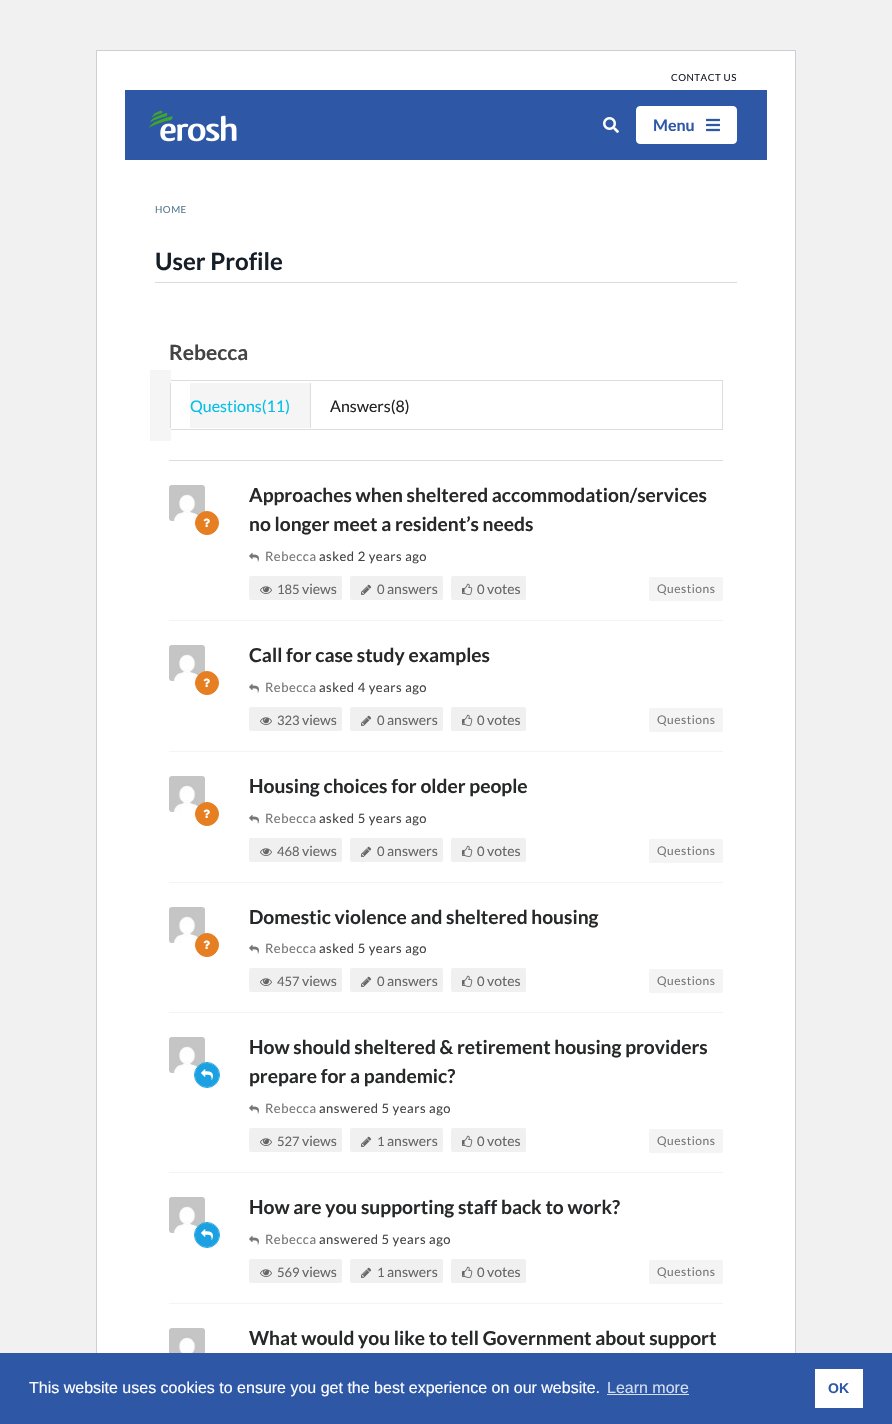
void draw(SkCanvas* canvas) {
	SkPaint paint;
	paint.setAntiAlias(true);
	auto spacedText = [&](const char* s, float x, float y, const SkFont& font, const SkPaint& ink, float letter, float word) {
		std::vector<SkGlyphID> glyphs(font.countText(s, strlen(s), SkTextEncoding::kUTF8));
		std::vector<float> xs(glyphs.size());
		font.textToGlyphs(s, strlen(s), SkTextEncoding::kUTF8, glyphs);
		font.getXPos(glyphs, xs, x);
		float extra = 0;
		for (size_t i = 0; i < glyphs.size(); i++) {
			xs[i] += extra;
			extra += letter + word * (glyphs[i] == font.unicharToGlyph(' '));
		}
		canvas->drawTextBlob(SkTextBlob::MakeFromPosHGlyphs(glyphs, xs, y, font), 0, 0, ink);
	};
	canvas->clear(0xfff1f1f1);
	paint.setColor(0xffffffff);
	canvas->drawRect(SkRect::MakeXYWH(97, 51, 698, 1302), paint);
	paint.setStroke(true);
	paint.setStrokeWidth(1);
	paint.setColor(0xffccd0d4);
	canvas->drawRect(SkRect::MakeXYWH(96.5, 50.5, 699, 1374), paint);
	SkFont f1(fontMgr->matchFamilyStyle("Lato", SkFontStyle::Normal()), 9.75);
	f1.setSubpixel(true);
	paint.setStroke(false);
	paint.setColor(0xff161e27);
	spacedText("CONTACT US", 671, 81, f1, paint, 0.5, 0);
	paint.setColor(0xff2e58a6);
	canvas->drawRect(SkRect::MakeXYWH(125, 90, 642, 70), paint);
	canvas->drawImageRect(SkImages::DeferredFromEncodedData(SkData::MakeFromFileName("img1.png")), SkRect::MakeXYWH(149, 110, 88, 32), SkSamplingOptions());
	canvas->drawImageRect(SkImages::DeferredFromEncodedData(SkData::MakeFromFileName("img2.png")), SkRect::MakeXYWH(603, 117, 16, 16), SkSamplingOptions());
	paint.setColor(0xffffffff);
	canvas->drawRoundRect(SkRect::MakeXYWH(636.5, 106.5, 100, 37), 3.5, 3.5, paint);
	paint.setStroke(true);
	canvas->drawRoundRect(SkRect::MakeXYWH(636.5, 106.5, 100, 37), 3.5, 3.5, paint);
	SkFont f2(fontMgr->matchFamilyStyle("Lato", SkFontStyle::Bold()), 16);
	f2.setSubpixel(true);
	paint.setStroke(false);
	paint.setColor(0xff2e58a6);
	canvas->drawString("Menu", 653, 131, f2, paint);
	canvas->drawImageRect(SkImages::DeferredFromEncodedData(SkData::MakeFromFileName("img3.png")), SkRect::MakeXYWH(706, 118, 14, 14), SkSamplingOptions());
	paint.setColor(0xff577a91);
	spacedText("HOME", 155, 213, f1, paint, 0.5, 0);
	paint.setColor(0xffdadada);
	canvas->drawRect(SkRect::MakeXYWH(155, 282, 582, 1), paint);
	SkFont f3(fontMgr->matchFamilyStyle("Lato", SkFontStyle::Bold()), 24);
	f3.setSubpixel(true);
	paint.setColor(0xff161e27);
	canvas->drawString("User Profile", 155, 270, f3, paint);
	SkFont f4(fontMgr->matchFamilyStyle("Lato", SkFontStyle::Bold()), 21);
	f4.setSubpixel(true);
	paint.setColor(0xff444444);
	canvas->drawString("Rebecca", 169, 360, f4, paint);
	paint.setStroke(true);
	paint.setColor(0xffdddddd);
	canvas->drawRect(SkRect::MakeXYWH(169.5, 380.5, 553, 49), paint);
	paint.setStroke(false);
	paint.setColor(0xfff5f5f5);
	canvas->drawRect(SkRect::MakeXYWH(150, 370, 21, 71), paint);
	canvas->drawRect(SkRect::MakeXYWH(190, 383, 120, 45), paint);
	paint.setColor(0xffdddddd);
	canvas->drawRect(SkRect::MakeXYWH(170, 383, 1, 45), paint);
	SkFont f5(fontMgr->matchFamilyStyle("Lato", SkFontStyle::Normal()), 16);
	f5.setSubpixel(true);
	paint.setColor(0xff03c0e8);
	canvas->drawString("Questions(11)", 190, 412, f5, paint);
	paint.setColor(0xffdddddd);
	canvas->drawRect(SkRect::MakeXYWH(310, 383, 1, 45), paint);
	paint.setColor(0xff222222);
	canvas->drawString("Answers(8)", 330, 412, f5, paint);
	paint.setColor(0xffdddddd);
	canvas->drawRect(SkRect::MakeXYWH(169, 460, 554, 1), paint);
	paint.setColor(0xfff4f4f4);
	canvas->drawRect(SkRect::MakeXYWH(169, 620, 554, 1), paint);
	SkFont f6(fontMgr->matchFamilyStyle("Lato", SkFontStyle::Bold()), 19.2);
	f6.setSubpixel(true);
	paint.setColor(0xff272829);
	canvas->drawString("Approaches when sheltered accommodation/services", 249, 502, f6, paint);
	canvas->drawString("no longer meet a resident’s needs", 249, 531, f6, paint);
	canvas->drawImageRect(SkImages::DeferredFromEncodedData(SkData::MakeFromFileName("img5.png")), SkRect::MakeXYWH(169, 485, 36, 36), SkSamplingOptions());
	paint.setColor(0xffe67e22);
	canvas->drawCircle(207, 523, 11.5, paint);
	paint.setStroke(true);
	canvas->drawCircle(207, 523, 11.5, paint);
	canvas->drawImageRect(SkImages::DeferredFromEncodedData(SkData::MakeFromFileName("img4.png")), SkRect::MakeXYWH(203, 518, 7, 9), SkSamplingOptions());
	canvas->drawImageRect(SkImages::DeferredFromEncodedData(SkData::MakeFromFileName("img6.png")), SkRect::MakeXYWH(249, 552, 10, 10), SkSamplingOptions());
	SkFont f7(fontMgr->matchFamilyStyle("Lato", SkFontStyle::Normal()), 13);
	f7.setSubpixel(true);
	paint.setStroke(false);
	paint.setColor(0xff777777);
	spacedText("Rebecca", 265, 561, f7, paint, 0.5, 0);
	paint.setColor(0xff444444);
	spacedText("asked 2 years ago", 319, 561, f7, paint, 0.5, 0);
	paint.setColor(0xfff4f4f4);
	canvas->drawRoundRect(SkRect::MakeXYWH(649, 577, 74, 24), 2, 2, paint);
	SkFont f8(fontMgr->matchFamilyStyle("Lato", SkFontStyle::Normal()), 12);
	f8.setSubpixel(true);
	paint.setColor(0xff777777);
	spacedText("Questions", 657, 593, f8, paint, 0.5, 0);
	paint.setColor(0xfff0f0f0);
	canvas->drawRoundRect(SkRect::MakeXYWH(249, 576, 93, 24), 2, 2, paint);
	canvas->drawImageRect(SkImages::DeferredFromEncodedData(SkData::MakeFromFileName("img7.png")), SkRect::MakeXYWH(260, 586, 12, 8), SkSamplingOptions());
	paint.setColor(0xff666666);
	canvas->drawString("185", 277, 594, f7, paint);
	SkFont f9(fontMgr->matchFamilyStyle("Lato", SkFontStyle::Normal()), 14);
	f9.setSubpixel(true);
	canvas->drawString("views", 302, 594, f9, paint);
	paint.setColor(0xfff0f0f0);
	canvas->drawRoundRect(SkRect::MakeXYWH(350, 576, 93, 24), 2, 2, paint);
	canvas->drawImageRect(SkImages::DeferredFromEncodedData(SkData::MakeFromFileName("img8.png")), SkRect::MakeXYWH(361, 584, 11, 11), SkSamplingOptions());
	paint.setColor(0xff666666);
	canvas->drawString("0", 377, 594, f7, paint);
	canvas->drawString("answers", 387, 594, f9, paint);
	paint.setColor(0xfff0f0f0);
	canvas->drawRoundRect(SkRect::MakeXYWH(451, 576, 75, 24), 2, 2, paint);
	canvas->drawImageRect(SkImages::DeferredFromEncodedData(SkData::MakeFromFileName("img9.png")), SkRect::MakeXYWH(462, 583, 11, 12), SkSamplingOptions());
	paint.setColor(0xff666666);
	canvas->drawString("0", 477, 594, f7, paint);
	canvas->drawString("votes", 487, 594, f9, paint);
	paint.setColor(0xfff4f4f4);
	canvas->drawRect(SkRect::MakeXYWH(169, 751, 554, 1), paint);
	paint.setColor(0xff272829);
	canvas->drawString("Call for case study examples", 249, 662, f6, paint);
	canvas->drawImageRect(SkImages::DeferredFromEncodedData(SkData::MakeFromFileName("img5.png")), SkRect::MakeXYWH(169, 645, 36, 36), SkSamplingOptions());
	paint.setColor(0xffe67e22);
	canvas->drawCircle(207, 683, 11.5, paint);
	paint.setStroke(true);
	canvas->drawCircle(207, 683, 11.5, paint);
	canvas->drawImageRect(SkImages::DeferredFromEncodedData(SkData::MakeFromFileName("img4.png")), SkRect::MakeXYWH(203, 678, 7, 9), SkSamplingOptions());
	canvas->drawImageRect(SkImages::DeferredFromEncodedData(SkData::MakeFromFileName("img6.png")), SkRect::MakeXYWH(249, 683, 10, 10), SkSamplingOptions());
	paint.setStroke(false);
	paint.setColor(0xff777777);
	spacedText("Rebecca", 265, 692, f7, paint, 0.5, 0);
	paint.setColor(0xff444444);
	spacedText("asked 4 years ago", 319, 692, f7, paint, 0.5, 0);
	paint.setColor(0xfff4f4f4);
	canvas->drawRoundRect(SkRect::MakeXYWH(649, 708, 74, 24), 2, 2, paint);
	paint.setColor(0xff777777);
	spacedText("Questions", 657, 724, f8, paint, 0.5, 0);
	paint.setColor(0xfff0f0f0);
	canvas->drawRoundRect(SkRect::MakeXYWH(249, 707, 93, 24), 2, 2, paint);
	canvas->drawImageRect(SkImages::DeferredFromEncodedData(SkData::MakeFromFileName("img7.png")), SkRect::MakeXYWH(260, 717, 12, 8), SkSamplingOptions());
	paint.setColor(0xff666666);
	canvas->drawString("323", 277, 725, f7, paint);
	canvas->drawString("views", 302, 725, f9, paint);
	paint.setColor(0xfff0f0f0);
	canvas->drawRoundRect(SkRect::MakeXYWH(350, 707, 93, 24), 2, 2, paint);
	canvas->drawImageRect(SkImages::DeferredFromEncodedData(SkData::MakeFromFileName("img8.png")), SkRect::MakeXYWH(361, 715, 11, 11), SkSamplingOptions());
	paint.setColor(0xff666666);
	canvas->drawString("0", 377, 725, f7, paint);
	canvas->drawString("answers", 387, 725, f9, paint);
	paint.setColor(0xfff0f0f0);
	canvas->drawRoundRect(SkRect::MakeXYWH(451, 707, 75, 24), 2, 2, paint);
	canvas->drawImageRect(SkImages::DeferredFromEncodedData(SkData::MakeFromFileName("img9.png")), SkRect::MakeXYWH(462, 714, 11, 12), SkSamplingOptions());
	paint.setColor(0xff666666);
	canvas->drawString("0", 477, 725, f7, paint);
	canvas->drawString("votes", 487, 725, f9, paint);
	paint.setColor(0xfff4f4f4);
	canvas->drawRect(SkRect::MakeXYWH(169, 882, 554, 1), paint);
	paint.setColor(0xff272829);
	canvas->drawString("Housing choices for older people", 249, 793, f6, paint);
	canvas->drawImageRect(SkImages::DeferredFromEncodedData(SkData::MakeFromFileName("img5.png")), SkRect::MakeXYWH(169, 776, 36, 36), SkSamplingOptions());
	paint.setColor(0xffe67e22);
	canvas->drawCircle(207, 814, 11.5, paint);
	paint.setStroke(true);
	canvas->drawCircle(207, 814, 11.5, paint);
	canvas->drawImageRect(SkImages::DeferredFromEncodedData(SkData::MakeFromFileName("img4.png")), SkRect::MakeXYWH(203, 809, 7, 9), SkSamplingOptions());
	canvas->drawImageRect(SkImages::DeferredFromEncodedData(SkData::MakeFromFileName("img6.png")), SkRect::MakeXYWH(249, 814, 10, 10), SkSamplingOptions());
	paint.setStroke(false);
	paint.setColor(0xff777777);
	spacedText("Rebecca", 265, 823, f7, paint, 0.5, 0);
	paint.setColor(0xff444444);
	spacedText("asked 5 years ago", 319, 823, f7, paint, 0.5, 0);
	paint.setColor(0xfff4f4f4);
	canvas->drawRoundRect(SkRect::MakeXYWH(649, 839, 74, 24), 2, 2, paint);
	paint.setColor(0xff777777);
	spacedText("Questions", 657, 855, f8, paint, 0.5, 0);
	paint.setColor(0xfff0f0f0);
	canvas->drawRoundRect(SkRect::MakeXYWH(249, 838, 93, 24), 2, 2, paint);
	canvas->drawImageRect(SkImages::DeferredFromEncodedData(SkData::MakeFromFileName("img7.png")), SkRect::MakeXYWH(260, 848, 12, 8), SkSamplingOptions());
	paint.setColor(0xff666666);
	canvas->drawString("468", 277, 856, f7, paint);
	canvas->drawString("views", 302, 856, f9, paint);
	paint.setColor(0xfff0f0f0);
	canvas->drawRoundRect(SkRect::MakeXYWH(350, 838, 93, 24), 2, 2, paint);
	canvas->drawImageRect(SkImages::DeferredFromEncodedData(SkData::MakeFromFileName("img8.png")), SkRect::MakeXYWH(361, 846, 11, 11), SkSamplingOptions());
	paint.setColor(0xff666666);
	canvas->drawString("0", 377, 856, f7, paint);
	canvas->drawString("answers", 387, 856, f9, paint);
	paint.setColor(0xfff0f0f0);
	canvas->drawRoundRect(SkRect::MakeXYWH(451, 838, 75, 24), 2, 2, paint);
	canvas->drawImageRect(SkImages::DeferredFromEncodedData(SkData::MakeFromFileName("img9.png")), SkRect::MakeXYWH(462, 845, 11, 12), SkSamplingOptions());
	paint.setColor(0xff666666);
	canvas->drawString("0", 477, 856, f7, paint);
	canvas->drawString("votes", 487, 856, f9, paint);
	paint.setColor(0xfff4f4f4);
	canvas->drawRect(SkRect::MakeXYWH(169, 1012, 554, 1), paint);
	paint.setColor(0xff272829);
	canvas->drawString("Domestic violence and sheltered housing", 249, 924, f6, paint);
	canvas->drawImageRect(SkImages::DeferredFromEncodedData(SkData::MakeFromFileName("img5.png")), SkRect::MakeXYWH(169, 907, 36, 36), SkSamplingOptions());
	paint.setColor(0xffe67e22);
	canvas->drawCircle(207, 945, 11.5, paint);
	paint.setStroke(true);
	canvas->drawCircle(207, 945, 11.5, paint);
	canvas->drawImageRect(SkImages::DeferredFromEncodedData(SkData::MakeFromFileName("img4.png")), SkRect::MakeXYWH(203, 940, 7, 9), SkSamplingOptions());
	canvas->drawImageRect(SkImages::DeferredFromEncodedData(SkData::MakeFromFileName("img6.png")), SkRect::MakeXYWH(249, 944, 10, 10), SkSamplingOptions());
	paint.setStroke(false);
	paint.setColor(0xff777777);
	spacedText("Rebecca", 265, 953, f7, paint, 0.5, 0);
	paint.setColor(0xff444444);
	spacedText("asked 5 years ago", 319, 953, f7, paint, 0.5, 0);
	paint.setColor(0xfff4f4f4);
	canvas->drawRoundRect(SkRect::MakeXYWH(649, 969, 74, 24), 2, 2, paint);
	paint.setColor(0xff777777);
	spacedText("Questions", 657, 985, f8, paint, 0.5, 0);
	paint.setColor(0xfff0f0f0);
	canvas->drawRoundRect(SkRect::MakeXYWH(249, 968, 93, 24), 2, 2, paint);
	canvas->drawImageRect(SkImages::DeferredFromEncodedData(SkData::MakeFromFileName("img7.png")), SkRect::MakeXYWH(260, 978, 12, 8), SkSamplingOptions());
	paint.setColor(0xff666666);
	canvas->drawString("457", 277, 986, f7, paint);
	canvas->drawString("views", 302, 986, f9, paint);
	paint.setColor(0xfff0f0f0);
	canvas->drawRoundRect(SkRect::MakeXYWH(350, 968, 93, 24), 2, 2, paint);
	canvas->drawImageRect(SkImages::DeferredFromEncodedData(SkData::MakeFromFileName("img8.png")), SkRect::MakeXYWH(361, 976, 11, 11), SkSamplingOptions());
	paint.setColor(0xff666666);
	canvas->drawString("0", 377, 986, f7, paint);
	canvas->drawString("answers", 387, 986, f9, paint);
	paint.setColor(0xfff0f0f0);
	canvas->drawRoundRect(SkRect::MakeXYWH(451, 968, 75, 24), 2, 2, paint);
	canvas->drawImageRect(SkImages::DeferredFromEncodedData(SkData::MakeFromFileName("img9.png")), SkRect::MakeXYWH(462, 975, 11, 12), SkSamplingOptions());
	paint.setColor(0xff666666);
	canvas->drawString("0", 477, 986, f7, paint);
	canvas->drawString("votes", 487, 986, f9, paint);
	paint.setColor(0xfff4f4f4);
	canvas->drawRect(SkRect::MakeXYWH(169, 1172, 554, 1), paint);
	paint.setColor(0xff272829);
	canvas->drawString("How should sheltered & retirement housing providers", 249, 1054, f6, paint);
	canvas->drawString("prepare for a pandemic?", 249, 1083, f6, paint);
	canvas->drawImageRect(SkImages::DeferredFromEncodedData(SkData::MakeFromFileName("img5.png")), SkRect::MakeXYWH(169, 1037, 36, 36), SkSamplingOptions());
	paint.setStroke(true);
	paint.setColor(0xff1ba1e2);
	canvas->drawCircle(207, 1075, 12.5, paint);
	paint.setStroke(false);
	canvas->drawCircle(207, 1075, 12, paint);
	canvas->drawImageRect(SkImages::DeferredFromEncodedData(SkData::MakeFromFileName("img10.png")), SkRect::MakeXYWH(201, 1069, 12, 11), SkSamplingOptions());
	canvas->drawImageRect(SkImages::DeferredFromEncodedData(SkData::MakeFromFileName("img6.png")), SkRect::MakeXYWH(249, 1104, 10, 10), SkSamplingOptions());
	paint.setColor(0xff777777);
	spacedText("Rebecca", 265, 1113, f7, paint, 0.5, 0);
	paint.setColor(0xff444444);
	spacedText("answered 5 years ago", 319, 1113, f7, paint, 0.5, 0);
	paint.setColor(0xfff4f4f4);
	canvas->drawRoundRect(SkRect::MakeXYWH(649, 1129, 74, 24), 2, 2, paint);
	paint.setColor(0xff777777);
	spacedText("Questions", 657, 1145, f8, paint, 0.5, 0);
	paint.setColor(0xfff0f0f0);
	canvas->drawRoundRect(SkRect::MakeXYWH(249, 1128, 93, 24), 2, 2, paint);
	canvas->drawImageRect(SkImages::DeferredFromEncodedData(SkData::MakeFromFileName("img7.png")), SkRect::MakeXYWH(260, 1138, 12, 8), SkSamplingOptions());
	paint.setColor(0xff666666);
	canvas->drawString("527", 277, 1146, f7, paint);
	canvas->drawString("views", 302, 1146, f9, paint);
	paint.setColor(0xfff0f0f0);
	canvas->drawRoundRect(SkRect::MakeXYWH(350, 1128, 93, 24), 2, 2, paint);
	canvas->drawImageRect(SkImages::DeferredFromEncodedData(SkData::MakeFromFileName("img8.png")), SkRect::MakeXYWH(361, 1136, 11, 11), SkSamplingOptions());
	paint.setColor(0xff666666);
	canvas->drawString("1", 377, 1146, f7, paint);
	canvas->drawString("answers", 387, 1146, f9, paint);
	paint.setColor(0xfff0f0f0);
	canvas->drawRoundRect(SkRect::MakeXYWH(451, 1128, 75, 24), 2, 2, paint);
	canvas->drawImageRect(SkImages::DeferredFromEncodedData(SkData::MakeFromFileName("img9.png")), SkRect::MakeXYWH(462, 1135, 11, 12), SkSamplingOptions());
	paint.setColor(0xff666666);
	canvas->drawString("0", 477, 1146, f7, paint);
	canvas->drawString("votes", 487, 1146, f9, paint);
	paint.setColor(0xfff4f4f4);
	canvas->drawRect(SkRect::MakeXYWH(169, 1303, 554, 1), paint);
	paint.setColor(0xff272829);
	canvas->drawString("How are you supporting staff back to work?", 249, 1214, f6, paint);
	canvas->drawImageRect(SkImages::DeferredFromEncodedData(SkData::MakeFromFileName("img5.png")), SkRect::MakeXYWH(169, 1197, 36, 36), SkSamplingOptions());
	paint.setStroke(true);
	paint.setColor(0xff1ba1e2);
	canvas->drawCircle(207, 1235, 12.5, paint);
	paint.setStroke(false);
	canvas->drawCircle(207, 1235, 12, paint);
	canvas->drawImageRect(SkImages::DeferredFromEncodedData(SkData::MakeFromFileName("img10.png")), SkRect::MakeXYWH(201, 1229, 12, 11), SkSamplingOptions());
	canvas->drawImageRect(SkImages::DeferredFromEncodedData(SkData::MakeFromFileName("img6.png")), SkRect::MakeXYWH(249, 1235, 10, 10), SkSamplingOptions());
	paint.setColor(0xff777777);
	spacedText("Rebecca", 265, 1244, f7, paint, 0.5, 0);
	paint.setColor(0xff444444);
	spacedText("answered 5 years ago", 319, 1244, f7, paint, 0.5, 0);
	paint.setColor(0xfff4f4f4);
	canvas->drawRoundRect(SkRect::MakeXYWH(649, 1260, 74, 24), 2, 2, paint);
	paint.setColor(0xff777777);
	spacedText("Questions", 657, 1276, f8, paint, 0.5, 0);
	paint.setColor(0xfff0f0f0);
	canvas->drawRoundRect(SkRect::MakeXYWH(249, 1259, 93, 24), 2, 2, paint);
	canvas->drawImageRect(SkImages::DeferredFromEncodedData(SkData::MakeFromFileName("img7.png")), SkRect::MakeXYWH(260, 1269, 12, 8), SkSamplingOptions());
	paint.setColor(0xff666666);
	canvas->drawString("569", 277, 1277, f7, paint);
	canvas->drawString("views", 302, 1277, f9, paint);
	paint.setColor(0xfff0f0f0);
	canvas->drawRoundRect(SkRect::MakeXYWH(350, 1259, 93, 24), 2, 2, paint);
	canvas->drawImageRect(SkImages::DeferredFromEncodedData(SkData::MakeFromFileName("img8.png")), SkRect::MakeXYWH(361, 1267, 11, 11), SkSamplingOptions());
	paint.setColor(0xff666666);
	canvas->drawString("1", 377, 1277, f7, paint);
	canvas->drawString("answers", 387, 1277, f9, paint);
	paint.setColor(0xfff0f0f0);
	canvas->drawRoundRect(SkRect::MakeXYWH(451, 1259, 75, 24), 2, 2, paint);
	canvas->drawImageRect(SkImages::DeferredFromEncodedData(SkData::MakeFromFileName("img9.png")), SkRect::MakeXYWH(462, 1266, 11, 12), SkSamplingOptions());
	paint.setColor(0xff666666);
	canvas->drawString("0", 477, 1277, f7, paint);
	canvas->drawString("votes", 487, 1277, f9, paint);
	canvas->drawImageRect(SkImages::DeferredFromEncodedData(SkData::MakeFromFileName("img11.png")), SkRect::MakeXYWH(169, 1328, 36, 25), SkSamplingOptions());
	paint.setColor(0xff272829);
	canvas->drawString("What would you like to tell Government about support", 249, 1345, f6, paint);
	paint.setColor(0xff2e58a6);
	canvas->drawRect(SkRect::MakeXYWH(0, 1353, 892, 71), paint);
	SkFont f10(fontMgr->matchFamilyStyle("Liberation Sans", SkFontStyle::Normal()), 16);
	f10.setSubpixel(true);
	paint.setColor(0xffffffff);
	canvas->drawString("This website uses cookies to ensure you get the best experience on our website.", 29, 1393, f10, paint);
	paint.setColor(0xffd5deed);
	canvas->drawString("Learn more", 607, 1393, f10, paint);
	canvas->drawRect(SkRect::MakeXYWH(607, 1394, 82, 1), paint);
	paint.setColor(0xffffffff);
	canvas->drawRect(SkRect::MakeXYWH(815, 1369, 48, 39), paint);
	SkFont f11(fontMgr->matchFamilyStyle("Liberation Sans", SkFontStyle::Bold()), 14);
	f11.setSubpixel(true);
	paint.setColor(0xff2e58a6);
	canvas->drawString("OK", 828, 1393, f11, paint);
}
